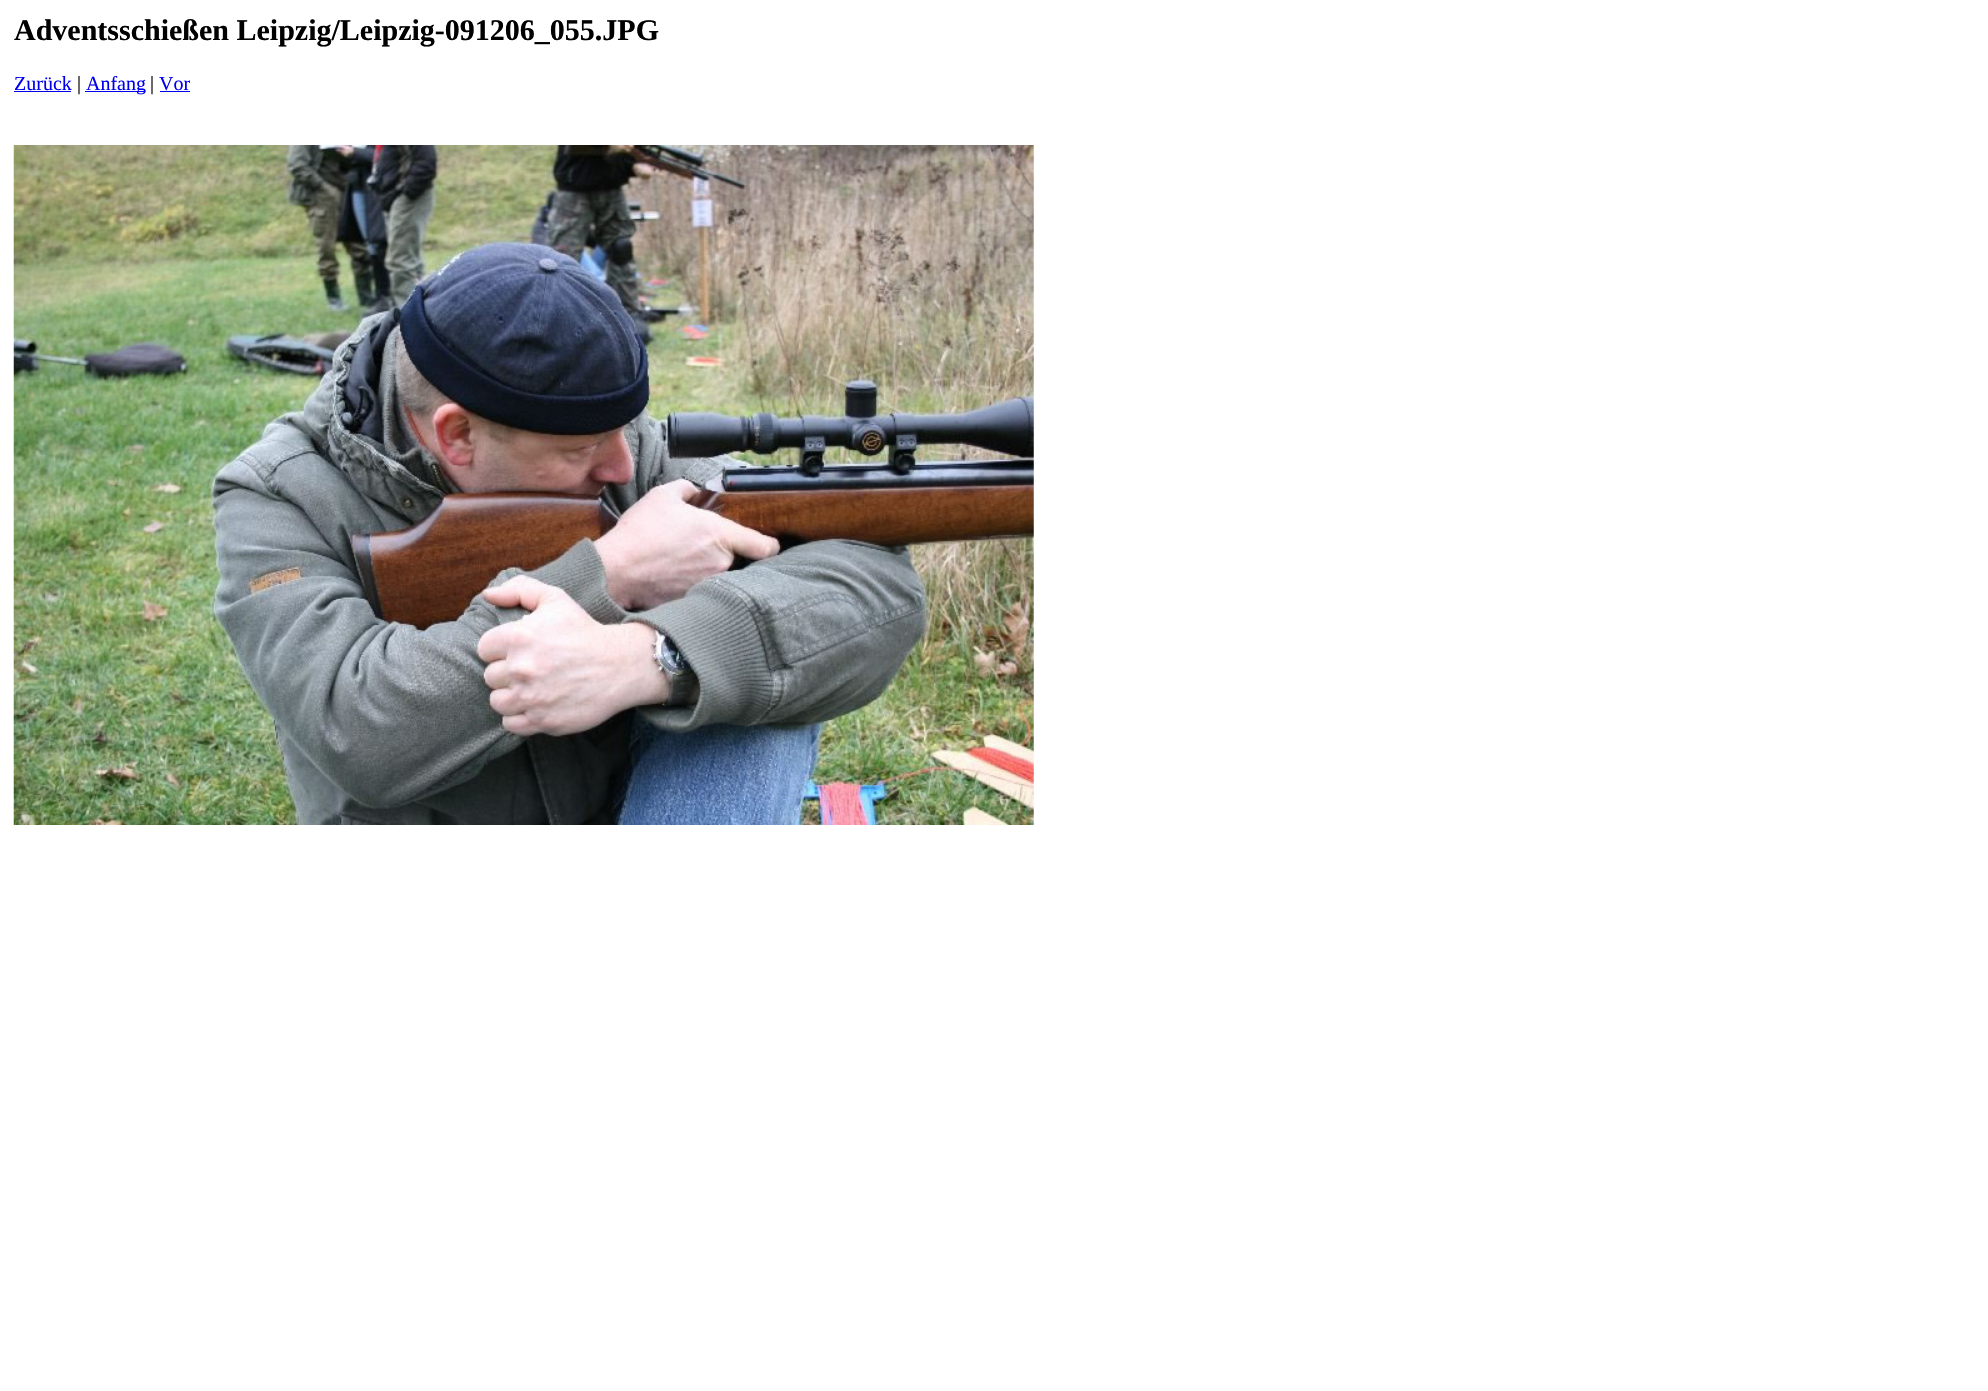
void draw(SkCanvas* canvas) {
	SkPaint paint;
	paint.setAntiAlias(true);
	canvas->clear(0xffffffff);
	SkFont f1(fontMgr->matchFamilyStyle("Liberation Serif", SkFontStyle::Bold()), 30);
	f1.setSubpixel(true);
	paint.setColor(0xff000000);
	canvas->drawString("Adventsschießen Leipzig/Leipzig-091206_055.JPG", 14, 40, f1, paint);
	SkFont f2(fontMgr->matchFamilyStyle("Liberation Serif", SkFontStyle::Normal()), 20);
	f2.setSubpixel(true);
	paint.setColor(0xff0000ee);
	canvas->drawString("Zurück", 14, 90, f2, paint);
	canvas->drawRect(SkRect::MakeXYWH(14, 91, 57, 1), paint);
	paint.setColor(0xff000000);
	canvas->drawString("|", 77, 90, f2, paint);
	paint.setColor(0xff0000ee);
	canvas->drawRect(SkRect::MakeXYWH(85, 91, 60, 1), paint);
	canvas->drawString("Anfang", 86, 90, f2, paint);
	paint.setColor(0xff000000);
	canvas->drawString("|", 150, 90, f2, paint);
	paint.setColor(0xff0000ee);
	canvas->drawString("Vor", 159, 90, f2, paint);
	canvas->drawRect(SkRect::MakeXYWH(160, 91, 30, 1), paint);
	canvas->drawImageRect(SkImages::DeferredFromEncodedData(SkData::MakeFromFileName("img1.png")), SkRect::MakeXYWH(13, 145, 1021, 680), SkSamplingOptions());
}
